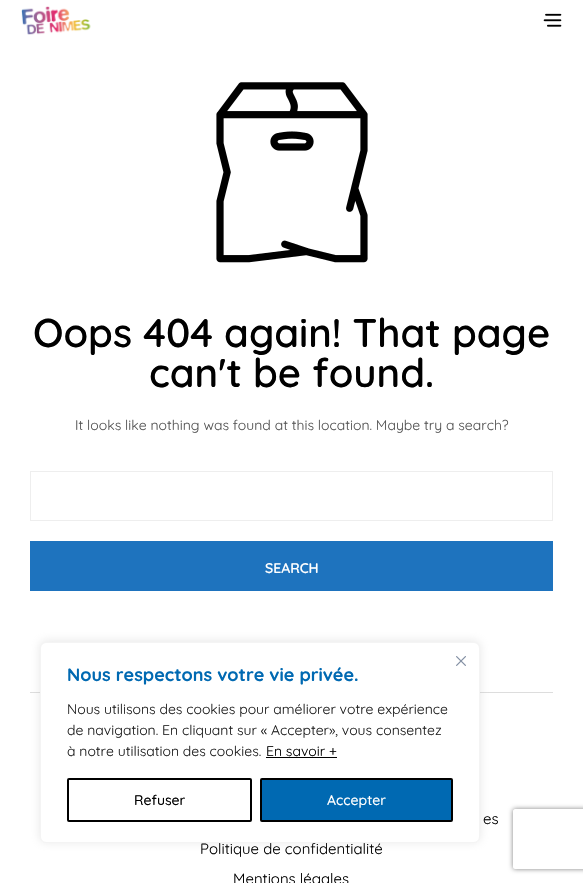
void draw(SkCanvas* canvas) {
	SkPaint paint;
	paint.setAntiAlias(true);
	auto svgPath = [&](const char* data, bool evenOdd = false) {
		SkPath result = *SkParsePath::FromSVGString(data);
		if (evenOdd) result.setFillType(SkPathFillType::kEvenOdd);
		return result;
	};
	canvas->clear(0xffffffff);
	canvas->drawImageRect(SkImages::DeferredFromEncodedData(SkData::MakeFromFileName("img1.png")), SkRect::MakeXYWH(21, 6, 70, 29), SkSamplingOptions());
	canvas->drawImageRect(SkImages::DeferredFromEncodedData(SkData::MakeFromFileName("img2.png")), SkRect::MakeXYWH(543, 13, 19, 14), SkSamplingOptions());
	canvas->drawImageRect(SkImages::DeferredFromEncodedData(SkData::MakeFromFileName("img3.png")), SkRect::MakeXYWH(216, 82, 152, 181), SkSamplingOptions());
	SkFont f1(fontMgr->matchFamilyStyle("Quicksand", SkFontStyle(600, SkFontStyle::kNormal_Width, SkFontStyle::kUpright_Slant)), 40);
	f1.setSubpixel(true);
	paint.setColor(0xff000000);
	canvas->drawString("Oops 404 again! That page", 33, 347, f1, paint);
	canvas->drawString("can't be found.", 149, 387, f1, paint);
	SkFont f2(fontMgr->matchFamilyStyle("Quicksand", SkFontStyle::Normal()), 14);
	f2.setSubpixel(true);
	paint.setColor(0xff545454);
	canvas->drawString("It looks like nothing was found at this location. Maybe try a search?", 75, 430, f2, paint);
	paint.setStroke(true);
	paint.setStrokeWidth(1);
	paint.setColor(0xffeeeeee);
	canvas->drawRect(SkRect::MakeXYWH(30.5, 471.5, 522, 49), paint);
	paint.setStroke(false);
	paint.setColor(0xff1e73be);
	canvas->drawRect(SkRect::MakeXYWH(30, 541, 523, 50), paint);
	SkFont f3(fontMgr->matchFamilyStyle("Quicksand", SkFontStyle(600, SkFontStyle::kNormal_Width, SkFontStyle::kUpright_Slant)), 14);
	f3.setSubpixel(true);
	paint.setColor(0xffffffff);
	canvas->drawString("SEARCH", 265, 573, f3, paint);
	paint.setColor(0xffdddddd);
	canvas->drawRect(SkRect::MakeXYWH(30, 692, 523, 1), paint);
	SkFont f4(fontMgr->matchFamilyStyle("Quicksand", SkFontStyle::Normal()), 15);
	f4.setSubpixel(true);
	paint.setColor(0xff000000);
	canvas->drawString("es", 483, 824, f4, paint);
	canvas->drawString("Politique de confidentialité", 200, 854, f4, paint);
	canvas->drawString("Mentions légales", 233, 884, f4, paint);
	paint.setColor(0x4dacabab);
	paint.setMaskFilter(SkMaskFilter::MakeBlur(kNormal_SkBlurStyle, 5));
	canvas->drawRoundRect(SkRect::MakeXYWH(40, 641, 440, 201), 6, 6, paint);
	paint.setMaskFilter(nullptr);
	paint.setColor(0xffffffff);
	canvas->drawRoundRect(SkRect::MakeXYWH(40.5, 642.5, 439, 200), 5.5, 5.5, paint);
	paint.setStroke(true);
	paint.setColor(0xfff4f4f4);
	canvas->drawRoundRect(SkRect::MakeXYWH(40.5, 642.5, 439, 200), 5.5, 5.5, paint);
	canvas->drawImageRect(SkImages::DeferredFromEncodedData(SkData::MakeFromFileName("img4.png")), SkRect::MakeXYWH(456, 656, 10, 10), SkSamplingOptions());
	SkFont f5(fontMgr->matchFamilyStyle("Quicksand", SkFontStyle::Bold()), 18);
	f5.setSubpixel(true);
	paint.setStroke(false);
	paint.setColor(0xff0069b2);
	canvas->drawString("Nous respectons votre vie privée.", 67, 681, f5, paint);
	paint.setColor(0xff212121);
	canvas->drawString("Nous utilisons des cookies pour améliorer votre expérience", 67, 714, f2, paint);
	canvas->drawString("de navigation. En cliquant sur « Accepter», vous consentez", 67, 735, f2, paint);
	canvas->drawString("à notre utilisation des cookies.", 67, 756, f2, paint);
	paint.setColor(0xff000000);
	canvas->drawString("En savoir +", 266, 756, f2, paint);
	canvas->drawRect(SkRect::MakeXYWH(266, 757, 71, 1), paint);
	paint.setStroke(true);
	paint.setStrokeWidth(2);
	canvas->drawRoundRect(SkRect::MakeXYWH(68, 779, 183, 42), 1, 1, paint);
	SkFont f6(fontMgr->matchFamilyStyle("Quicksand", SkFontStyle(500, SkFontStyle::kNormal_Width, SkFontStyle::kUpright_Slant)), 14);
	f6.setSubpixel(true);
	paint.setStroke(false);
	canvas->drawString("Refuser", 134, 805, f6, paint);
	paint.setColor(0xff0069b2);
	canvas->drawRoundRect(SkRect::MakeXYWH(261, 779, 191, 42), 1, 1, paint);
	paint.setStroke(true);
	paint.setColor(0xff000000);
	canvas->drawRoundRect(SkRect::MakeXYWH(261, 779, 191, 42), 1, 1, paint);
	paint.setStroke(false);
	paint.setColor(0xffffffff);
	canvas->drawString("Accepter", 327, 805, f6, paint);
	canvas->save();
	canvas->clipPath(svgPath("M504 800H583V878H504ZM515 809H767C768 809 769 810 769 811V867C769 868 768 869 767 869H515C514 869 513 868 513 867V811C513 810 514 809 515 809Z", true), true);
	paint.setColor(0xff808080);
	paint.setMaskFilter(SkMaskFilter::MakeBlur(kNormal_SkBlurStyle, 2.5));
	canvas->drawRoundRect(SkRect::MakeXYWH(513, 809, 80, 60), 2, 2, paint);
	paint.setMaskFilter(nullptr);
	canvas->restore();
}
